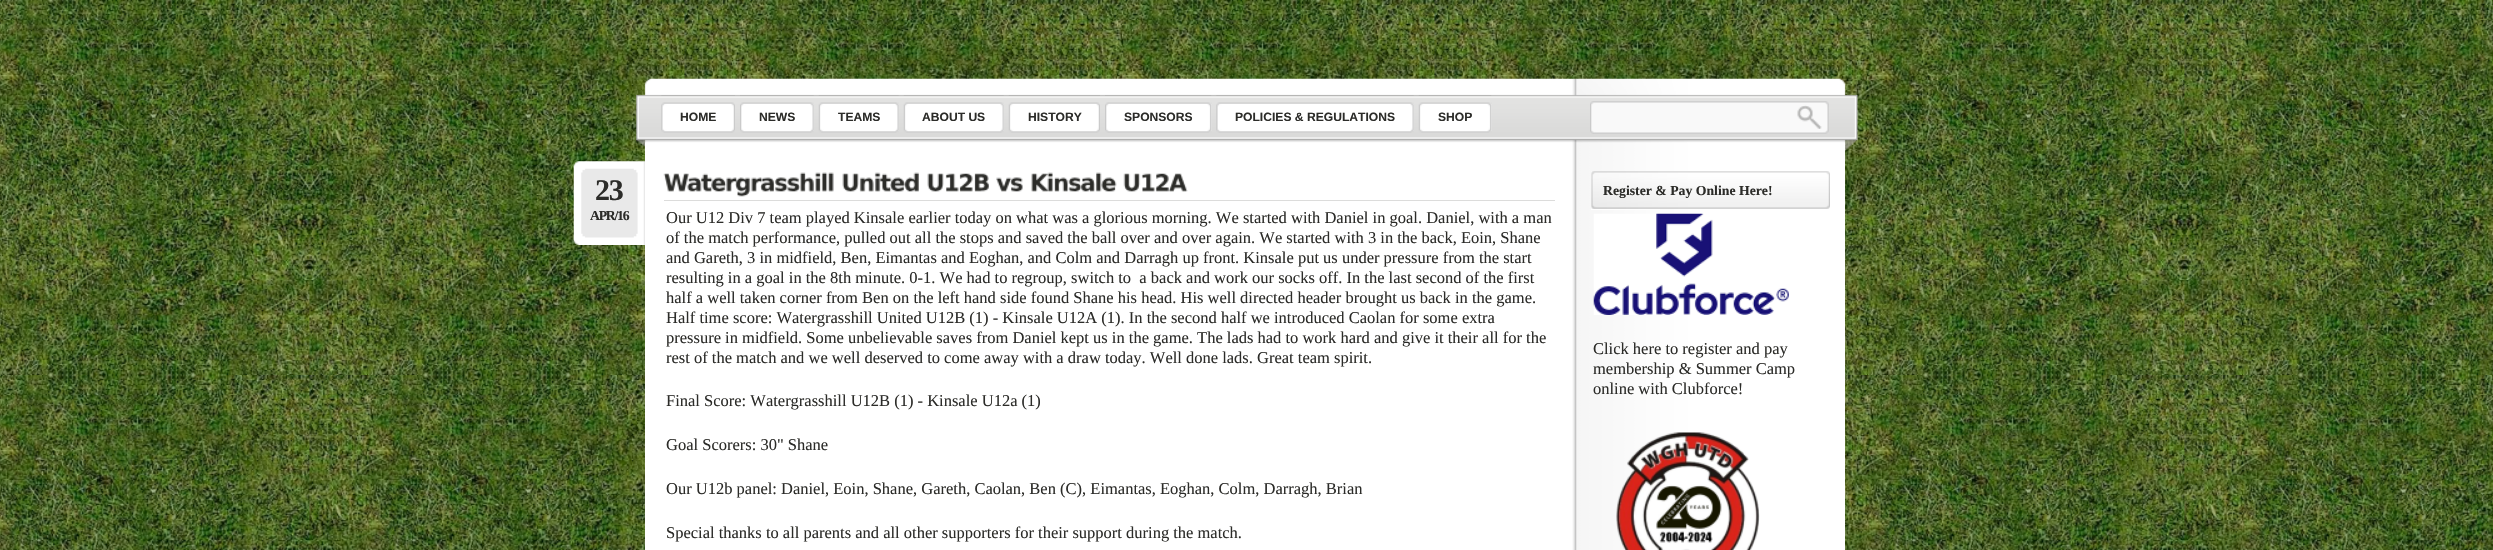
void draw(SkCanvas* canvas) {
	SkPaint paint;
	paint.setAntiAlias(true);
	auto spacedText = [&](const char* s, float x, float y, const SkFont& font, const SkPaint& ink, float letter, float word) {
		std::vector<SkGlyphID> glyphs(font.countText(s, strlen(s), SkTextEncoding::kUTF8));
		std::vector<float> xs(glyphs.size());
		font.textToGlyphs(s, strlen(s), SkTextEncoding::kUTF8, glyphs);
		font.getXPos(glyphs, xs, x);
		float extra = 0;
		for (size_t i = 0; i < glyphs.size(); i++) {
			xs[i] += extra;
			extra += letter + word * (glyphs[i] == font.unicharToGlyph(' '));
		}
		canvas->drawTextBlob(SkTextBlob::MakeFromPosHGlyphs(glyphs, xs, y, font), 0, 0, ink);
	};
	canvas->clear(0xffffffff);
	canvas->drawImageRect(SkImages::DeferredFromEncodedData(SkData::MakeFromFileName("img1.png")), SkRect::MakeXYWH(0, 0, 2493, 550), SkSamplingOptions());
	canvas->drawImageRect(SkImages::DeferredFromEncodedData(SkData::MakeFromFileName("img2.png")), SkRect::MakeXYWH(636, 54, 1222, 98), SkSamplingOptions());
	canvas->drawImageRect(SkImages::DeferredFromEncodedData(SkData::MakeFromFileName("img3.png")), SkRect::MakeXYWH(661, 95, 74, 38), SkSamplingOptions());
	canvas->drawImageRect(SkImages::DeferredFromEncodedData(SkData::MakeFromFileName("img4.png")), SkRect::MakeXYWH(731, 102, 4, 31), SkSamplingOptions());
	SkFont f1(fontMgr->matchFamilyStyle("Liberation Sans", SkFontStyle::Bold()), 12.1);
	f1.setSubpixel(true);
	paint.setColor(0xff2c2c29);
	canvas->drawString("HOME", 680, 121, f1, paint);
	canvas->drawImageRect(SkImages::DeferredFromEncodedData(SkData::MakeFromFileName("img5.png")), SkRect::MakeXYWH(740, 95, 74, 38), SkSamplingOptions());
	canvas->drawImageRect(SkImages::DeferredFromEncodedData(SkData::MakeFromFileName("img6.png")), SkRect::MakeXYWH(810, 102, 4, 31), SkSamplingOptions());
	canvas->drawString("NEWS", 759, 121, f1, paint);
	canvas->drawImageRect(SkImages::DeferredFromEncodedData(SkData::MakeFromFileName("img7.png")), SkRect::MakeXYWH(818, 95, 81, 38), SkSamplingOptions());
	canvas->drawImageRect(SkImages::DeferredFromEncodedData(SkData::MakeFromFileName("img8.png")), SkRect::MakeXYWH(895, 102, 4, 31), SkSamplingOptions());
	canvas->drawString("TEAMS", 838, 121, f1, paint);
	canvas->drawImageRect(SkImages::DeferredFromEncodedData(SkData::MakeFromFileName("img9.png")), SkRect::MakeXYWH(903, 95, 101, 38), SkSamplingOptions());
	canvas->drawImageRect(SkImages::DeferredFromEncodedData(SkData::MakeFromFileName("img10.png")), SkRect::MakeXYWH(1000, 102, 4, 31), SkSamplingOptions());
	canvas->drawString("ABOUT US", 922, 121, f1, paint);
	canvas->drawImageRect(SkImages::DeferredFromEncodedData(SkData::MakeFromFileName("img11.png")), SkRect::MakeXYWH(1008, 95, 92, 38), SkSamplingOptions());
	canvas->drawImageRect(SkImages::DeferredFromEncodedData(SkData::MakeFromFileName("img12.png")), SkRect::MakeXYWH(1096, 102, 4, 31), SkSamplingOptions());
	canvas->drawString("HISTORY", 1028, 121, f1, paint);
	canvas->drawImageRect(SkImages::DeferredFromEncodedData(SkData::MakeFromFileName("img13.png")), SkRect::MakeXYWH(1105, 95, 107, 38), SkSamplingOptions());
	canvas->drawImageRect(SkImages::DeferredFromEncodedData(SkData::MakeFromFileName("img14.png")), SkRect::MakeXYWH(1207, 102, 5, 31), SkSamplingOptions());
	canvas->drawString("SPONSORS", 1124, 121, f1, paint);
	canvas->drawImageRect(SkImages::DeferredFromEncodedData(SkData::MakeFromFileName("img15.png")), SkRect::MakeXYWH(1216, 95, 198, 38), SkSamplingOptions());
	canvas->drawImageRect(SkImages::DeferredFromEncodedData(SkData::MakeFromFileName("img8.png")), SkRect::MakeXYWH(1410, 102, 4, 31), SkSamplingOptions());
	canvas->drawString("POLICIES & REGULATIONS", 1235, 121, f1, paint);
	canvas->drawImageRect(SkImages::DeferredFromEncodedData(SkData::MakeFromFileName("img16.png")), SkRect::MakeXYWH(1418, 95, 74, 38), SkSamplingOptions());
	canvas->drawImageRect(SkImages::DeferredFromEncodedData(SkData::MakeFromFileName("img17.png")), SkRect::MakeXYWH(1487, 102, 5, 31), SkSamplingOptions());
	canvas->drawString("SHOP", 1438, 121, f1, paint);
	canvas->drawImageRect(SkImages::DeferredFromEncodedData(SkData::MakeFromFileName("img18.png")), SkRect::MakeXYWH(1590, 101, 239, 33), SkSamplingOptions());
	canvas->drawImageRect(SkImages::DeferredFromEncodedData(SkData::MakeFromFileName("img19.png")), SkRect::MakeXYWH(645, 142, 1200, 408), SkSamplingOptions());
	canvas->drawImageRect(SkImages::DeferredFromEncodedData(SkData::MakeFromFileName("img20.png")), SkRect::MakeXYWH(573, 161, 72, 84), SkSamplingOptions());
	SkFont f2(fontMgr->matchFamilyStyle("Liberation Serif", SkFontStyle::Bold()), 30);
	f2.setSubpixel(true);
	spacedText("23", 595, 200, f2, paint, -1.25, 0);
	SkFont f3(fontMgr->matchFamilyStyle("Liberation Serif", SkFontStyle::Bold()), 13.75);
	f3.setSubpixel(true);
	spacedText("APR/16", 590, 220, f3, paint, -1.25, 0);
	paint.setColor(0xffdcdcdb);
	canvas->drawRect(SkRect::MakeXYWH(664, 200, 891, 1), paint);
	canvas->drawImageRect(SkImages::DeferredFromEncodedData(SkData::MakeFromFileName("img21.png")), SkRect::MakeXYWH(663, 172, 171, 25), SkSamplingOptions());
	canvas->drawImageRect(SkImages::DeferredFromEncodedData(SkData::MakeFromFileName("img22.png")), SkRect::MakeXYWH(842, 172, 77, 20), SkSamplingOptions());
	canvas->drawImageRect(SkImages::DeferredFromEncodedData(SkData::MakeFromFileName("img23.png")), SkRect::MakeXYWH(927, 173, 62, 19), SkSamplingOptions());
	canvas->drawImageRect(SkImages::DeferredFromEncodedData(SkData::MakeFromFileName("img24.png")), SkRect::MakeXYWH(996, 177, 27, 15), SkSamplingOptions());
	canvas->drawImageRect(SkImages::DeferredFromEncodedData(SkData::MakeFromFileName("img25.png")), SkRect::MakeXYWH(1031, 172, 86, 20), SkSamplingOptions());
	canvas->drawImageRect(SkImages::DeferredFromEncodedData(SkData::MakeFromFileName("img26.png")), SkRect::MakeXYWH(1123, 173, 65, 19), SkSamplingOptions());
	SkFont f4(fontMgr->matchFamilyStyle("Liberation Serif", SkFontStyle::Normal()), 16.5);
	f4.setSubpixel(true);
	paint.setColor(0xff2c2c29);
	canvas->drawString("Our U12 Div 7 team played Kinsale earlier today on what was a glorious morning. We started with Daniel in goal. Daniel, with a man", 666, 223, f4, paint);
	canvas->drawString("of the match performance, pulled out all the stops and saved the ball over and over again. We started with 3 in the back, Eoin, Shane", 666, 243, f4, paint);
	canvas->drawString("and Gareth, 3 in midfield, Ben, Eimantas and Eoghan, and Colm and Darragh up front. Kinsale put us under pressure from the start", 666, 263, f4, paint);
	canvas->drawString("resulting in a goal in the 8th minute. 0-1. We had to regroup, switch to  a back and work our socks off. In the last second of the first", 666, 283, f4, paint);
	canvas->drawString("half a well taken corner from Ben on the left hand side found Shane his head. His well directed header brought us back in the game.", 666, 303, f4, paint);
	canvas->drawString("Half time score: Watergrasshill United U12B (1) - Kinsale U12A (1). In the second half we introduced Caolan for some extra", 666, 323, f4, paint);
	canvas->drawString("pressure in midfield. Some unbelievable saves from Daniel kept us in the game. The lads had to work hard and give it their all for the", 666, 343, f4, paint);
	canvas->drawString("rest of the match and we well deserved to come away with a draw today. Well done lads. Great team spirit.", 666, 363, f4, paint);
	canvas->drawString("Final Score: Watergrasshill U12B (1) - Kinsale U12a (1)", 666, 406, f4, paint);
	canvas->drawString("Goal Scorers: 30\" Shane", 666, 450, f4, paint);
	canvas->drawString("Our U12b panel: Daniel, Eoin, Shane, Gareth, Caolan, Ben (C), Eimantas, Eoghan, Colm, Darragh, Brian", 666, 494, f4, paint);
	canvas->drawString("Special thanks to all parents and all other supporters for their support during the match.", 666, 538, f4, paint);
	paint.setColor(0xffffffff);
	canvas->drawRect(SkRect::MakeXYWH(1591, 171, 69, 39), paint);
	canvas->drawImageRect(SkImages::DeferredFromEncodedData(SkData::MakeFromFileName("img27.png")), SkRect::MakeXYWH(1591, 171, 239, 38), SkSamplingOptions());
	paint.setColor(0xff2c2c29);
	canvas->drawString("Register & Pay Online Here!", 1603, 195, f3, paint);
	canvas->drawImageRect(SkImages::DeferredFromEncodedData(SkData::MakeFromFileName("img28.png")), SkRect::MakeXYWH(1593, 213, 196, 102), SkSamplingOptions());
	canvas->drawString("Click here to register and pay", 1593, 354, f4, paint);
	canvas->drawString("membership & Summer Camp", 1593, 374, f4, paint);
	canvas->drawString("online with Clubforce!", 1593, 394, f4, paint);
	canvas->drawImageRect(SkImages::DeferredFromEncodedData(SkData::MakeFromFileName("img29.png")), SkRect::MakeXYWH(1616, 432, 144, 118), SkSamplingOptions());
}
